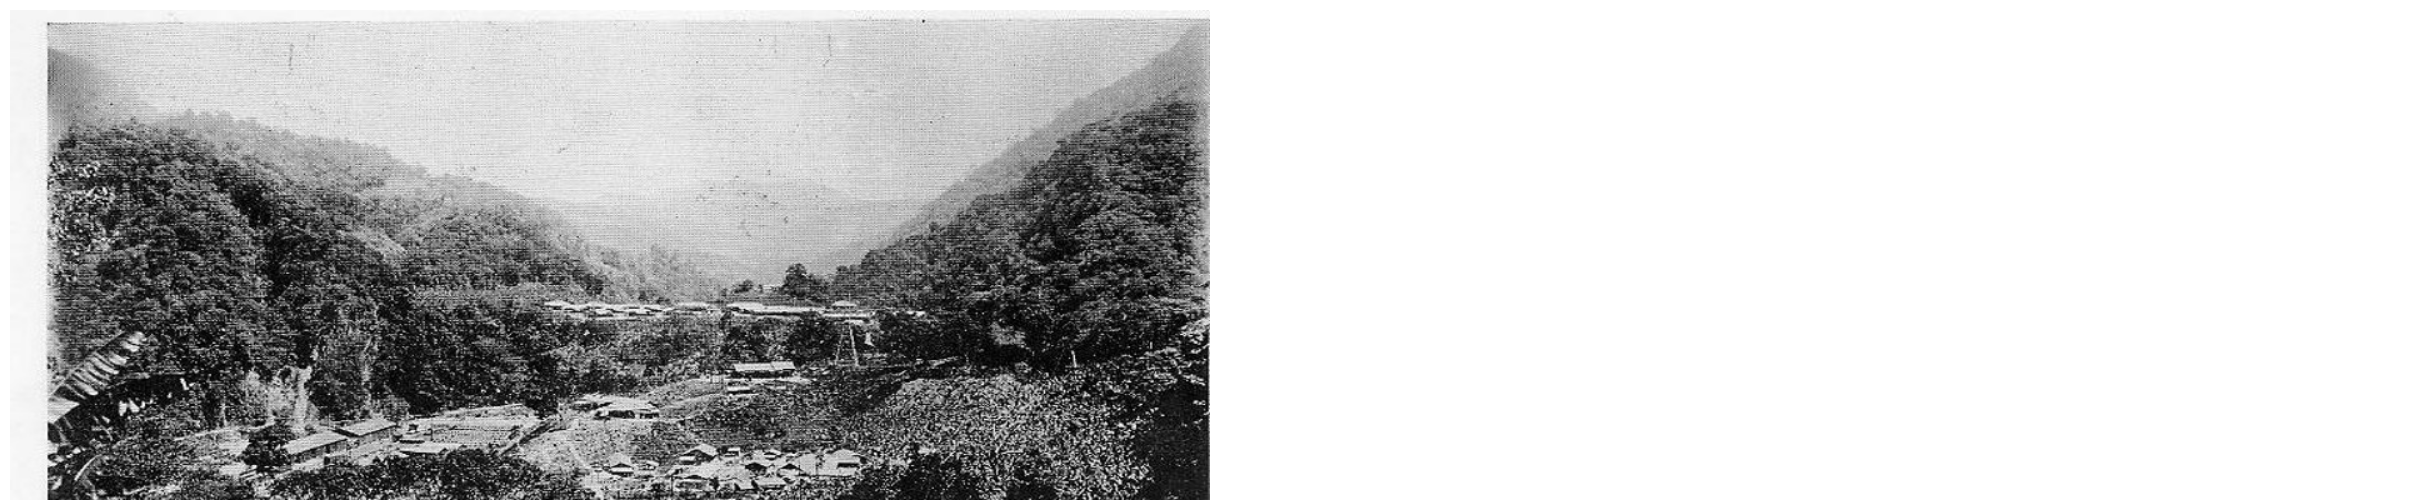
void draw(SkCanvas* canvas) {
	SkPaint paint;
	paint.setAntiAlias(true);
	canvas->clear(0xffffffff);
	canvas->drawImageRect(SkImages::DeferredFromEncodedData(SkData::MakeFromFileName("img1.png")), SkRect::MakeXYWH(10, 10, 1200, 490), SkSamplingOptions());
}
